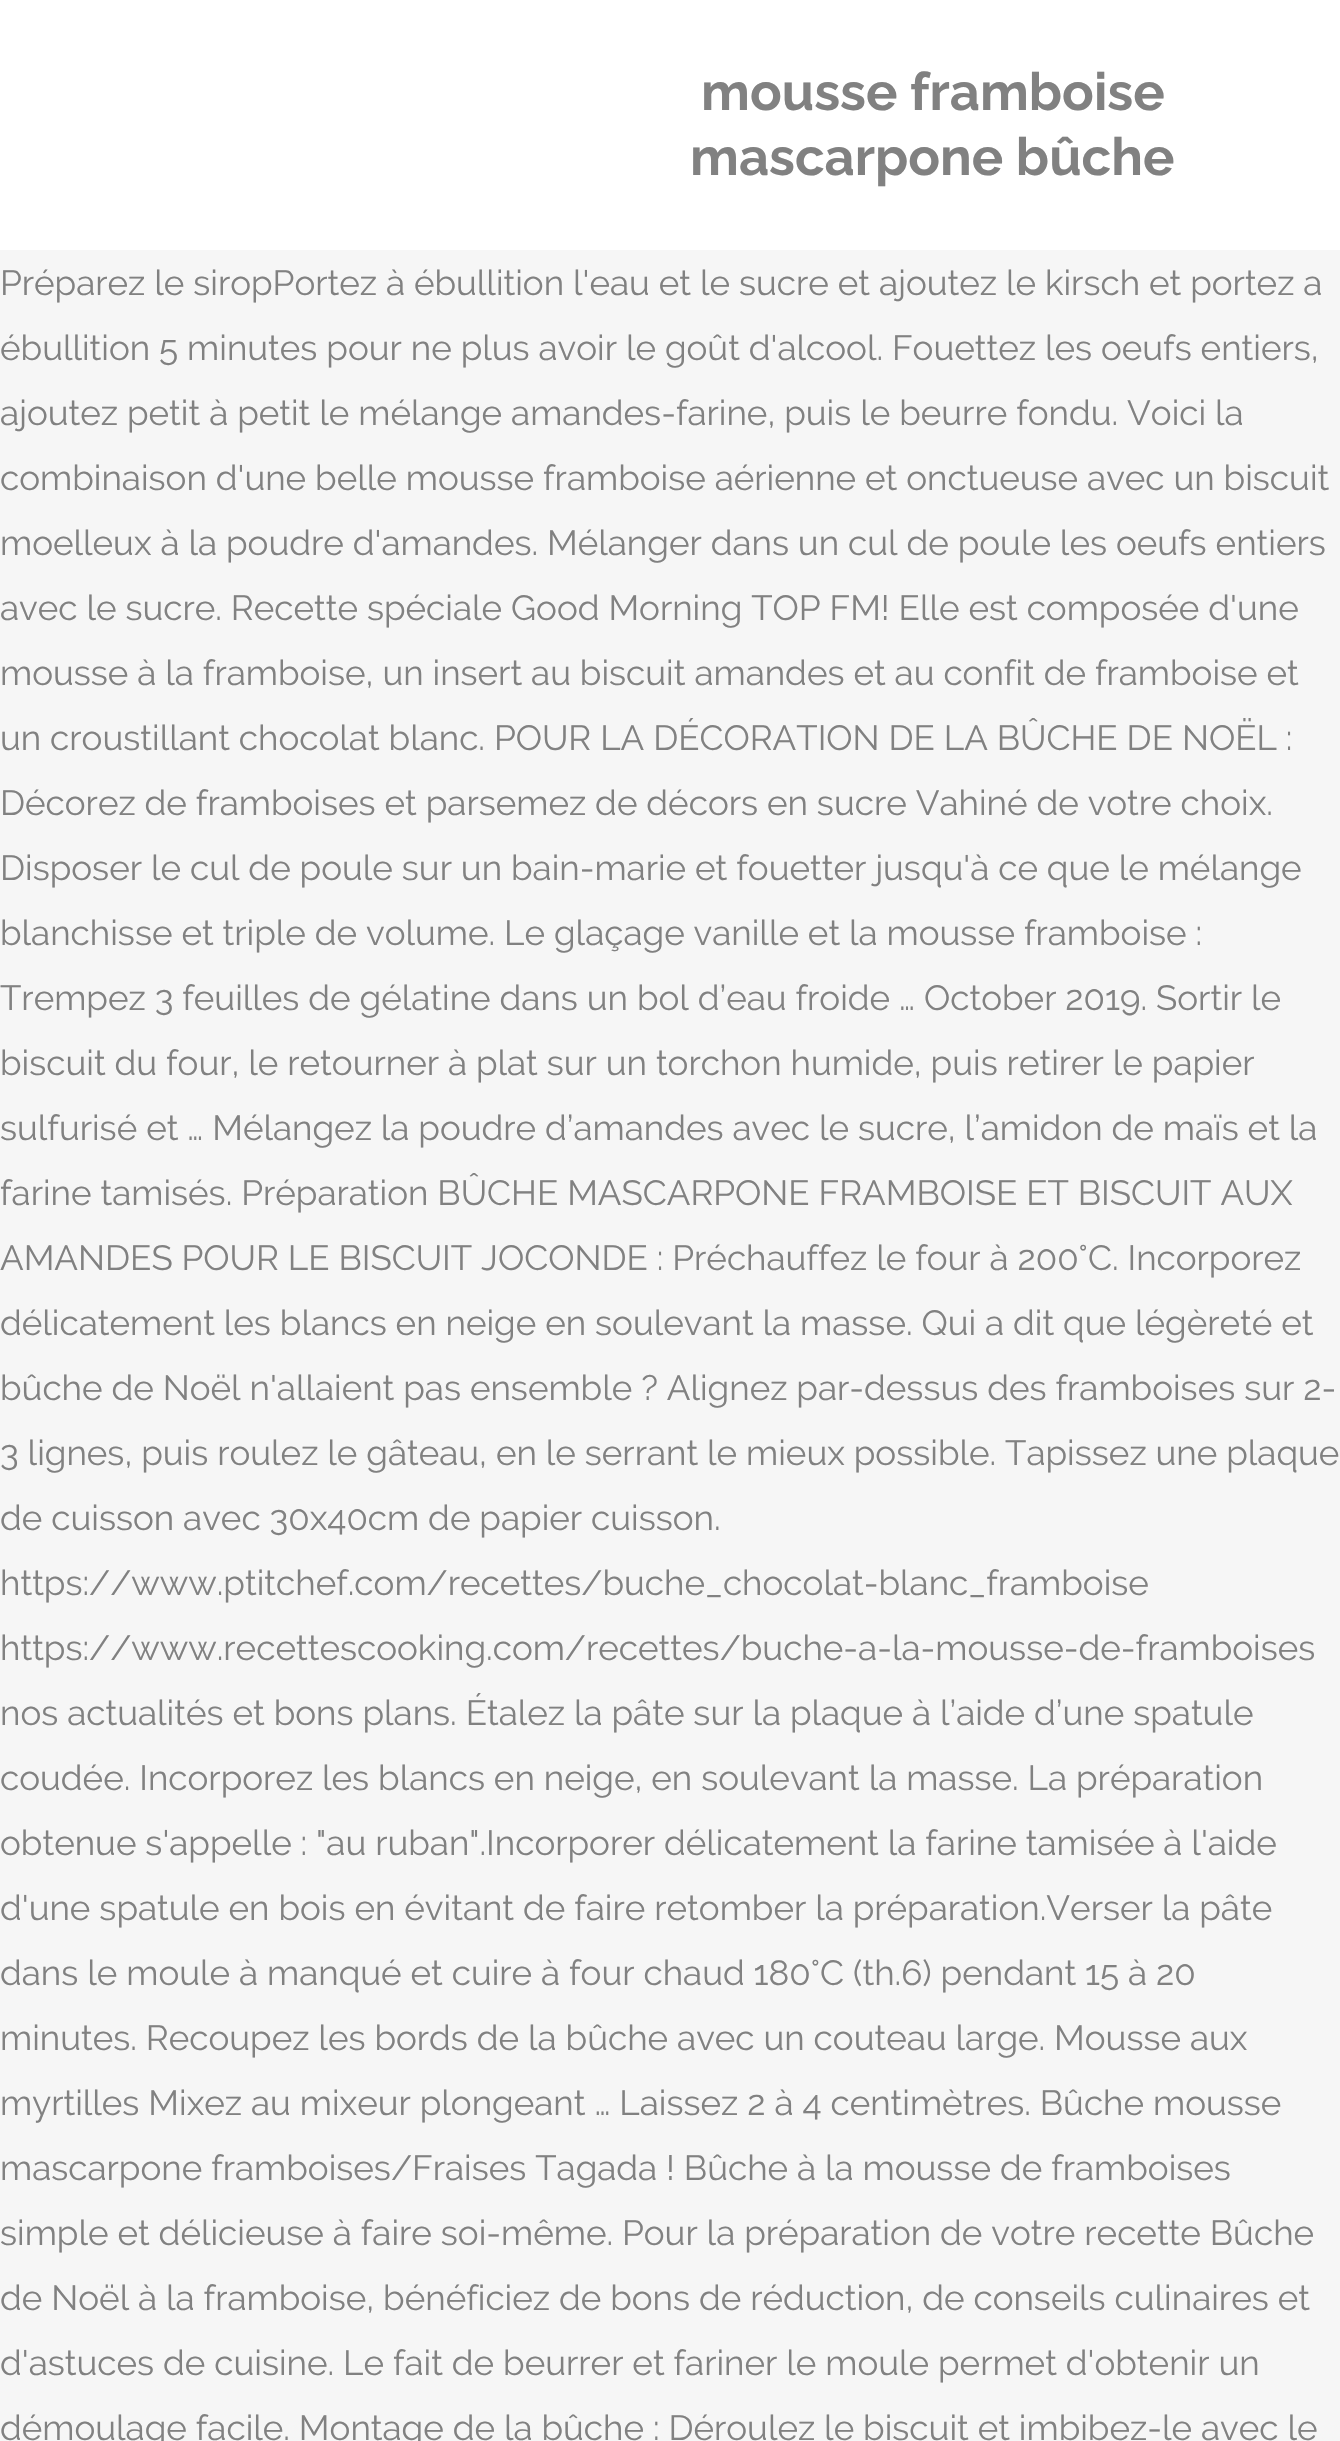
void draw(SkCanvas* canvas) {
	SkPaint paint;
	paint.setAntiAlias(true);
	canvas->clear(0xfff6f6f6);
	paint.setColor(0xffffffff);
	canvas->drawRect(SkRect::MakeXYWH(0, 0, 1340, 250), paint);
	SkFont f1(fontMgr->matchFamilyStyle("Raleway", SkFontStyle::Bold()), 52.5);
	f1.setSubpixel(true);
	paint.setColor(0xff818181);
	canvas->drawString("mousse framboise", 701, 110, f1, paint);
	canvas->drawString("mascarpone bûche", 690, 175, f1, paint);
	SkFont f2(fontMgr->matchFamilyStyle("Raleway", SkFontStyle::Normal()), 35);
	f2.setSubpixel(true);
	canvas->drawString("Préparez le siropPortez à ébullition l'eau et le sucre et ajoutez le kirsch et portez a", 0, 295, f2, paint);
	canvas->drawString("ébullition 5 minutes pour ne plus avoir le goût d'alcool. Fouettez les oeufs entiers,", 0, 360, f2, paint);
	canvas->drawString("ajoutez petit à petit le mélange amandes-farine, puis le beurre fondu. Voici la", 0, 425, f2, paint);
	canvas->drawString("combinaison d'une belle mousse framboise aérienne et onctueuse avec un biscuit", 0, 490, f2, paint);
	canvas->drawString("moelleux à la poudre d'amandes. Mélanger dans un cul de poule les oeufs entiers", 0, 555, f2, paint);
	canvas->drawString("avec le sucre. Recette spéciale Good Morning TOP FM! Elle est composée d'une", 0, 620, f2, paint);
	canvas->drawString("mousse à la framboise, un insert au biscuit amandes et au confit de framboise et", 0, 685, f2, paint);
	canvas->drawString("un croustillant chocolat blanc. POUR LA DÉCORATION DE LA BÛCHE DE NOËL :", 0, 750, f2, paint);
	canvas->drawString("Décorez de framboises et parsemez de décors en sucre Vahiné de votre choix.", 0, 815, f2, paint);
	canvas->drawString("Disposer le cul de poule sur un bain-marie et fouetter jusqu'à ce que le mélange", 0, 880, f2, paint);
	canvas->drawString("blanchisse et triple de volume. Le glaçage vanille et la mousse framboise :", 0, 945, f2, paint);
	canvas->drawString("Trempez 3 feuilles de gélatine dans un bol d’eau froide … October 2019. Sortir le", 0, 1010, f2, paint);
	canvas->drawString("biscuit du four, le retourner à plat sur un torchon humide, puis retirer le papier", 0, 1075, f2, paint);
	canvas->drawString("sulfurisé et … Mélangez la poudre d’amandes avec le sucre, l’amidon de maïs et la", 0, 1140, f2, paint);
	canvas->drawString("farine tamisés. Préparation BÛCHE MASCARPONE FRAMBOISE ET BISCUIT AUX", 0, 1205, f2, paint);
	canvas->drawString("AMANDES POUR LE BISCUIT JOCONDE : Préchauffez le four à 200°C. Incorporez", 0, 1270, f2, paint);
	canvas->drawString("délicatement les blancs en neige en soulevant la masse. Qui a dit que légèreté et", 0, 1335, f2, paint);
	canvas->drawString("bûche de Noël n'allaient pas ensemble ? Alignez par-dessus des framboises sur 2-", 0, 1400, f2, paint);
	canvas->drawString("3 lignes, puis roulez le gâteau, en le serrant le mieux possible. Tapissez une plaque", 0, 1465, f2, paint);
	canvas->drawString("de cuisson avec 30x40cm de papier cuisson.", 0, 1530, f2, paint);
	canvas->drawString("https://www.ptitchef.com/recettes/buche_chocolat-blanc_framboise", 0, 1595, f2, paint);
	canvas->drawString("https://www.recettescooking.com/recettes/buche-a-la-mousse-de-framboises", 0, 1660, f2, paint);
	canvas->drawString("nos actualités et bons plans. Étalez la pâte sur la plaque à l’aide d’une spatule", 0, 1725, f2, paint);
	canvas->drawString("coudée. Incorporez les blancs en neige, en soulevant la masse. La préparation", 0, 1790, f2, paint);
	canvas->drawString("obtenue s'appelle : \"au ruban\".Incorporer délicatement la farine tamisée à l'aide", 0, 1855, f2, paint);
	canvas->drawString("d'une spatule en bois en évitant de faire retomber la préparation.Verser la pâte", 0, 1920, f2, paint);
	canvas->drawString("dans le moule à manqué et cuire à four chaud 180°C (th.6) pendant 15 à 20", 0, 1985, f2, paint);
	canvas->drawString("minutes. Recoupez les bords de la bûche avec un couteau large. Mousse aux", 0, 2050, f2, paint);
	canvas->drawString("myrtilles Mixez au mixeur plongeant … Laissez 2 à 4 centimètres. Bûche mousse", 0, 2115, f2, paint);
	canvas->drawString("mascarpone framboises/Fraises Tagada ! Bûche à la mousse de framboises", 0, 2180, f2, paint);
	canvas->drawString("simple et délicieuse à faire soi-même. Pour la préparation de votre recette Bûche", 0, 2245, f2, paint);
	canvas->drawString("de Noël à la framboise, bénéficiez de bons de réduction, de conseils culinaires et", 0, 2310, f2, paint);
	canvas->drawString("d'astuces de cuisine. Le fait de beurrer et fariner le moule permet d'obtenir un", 0, 2375, f2, paint);
	canvas->drawString("démoulage facile. Montage de la bûche : Déroulez le biscuit et imbibez-le avec le", 0, 2440, f2, paint);
}
